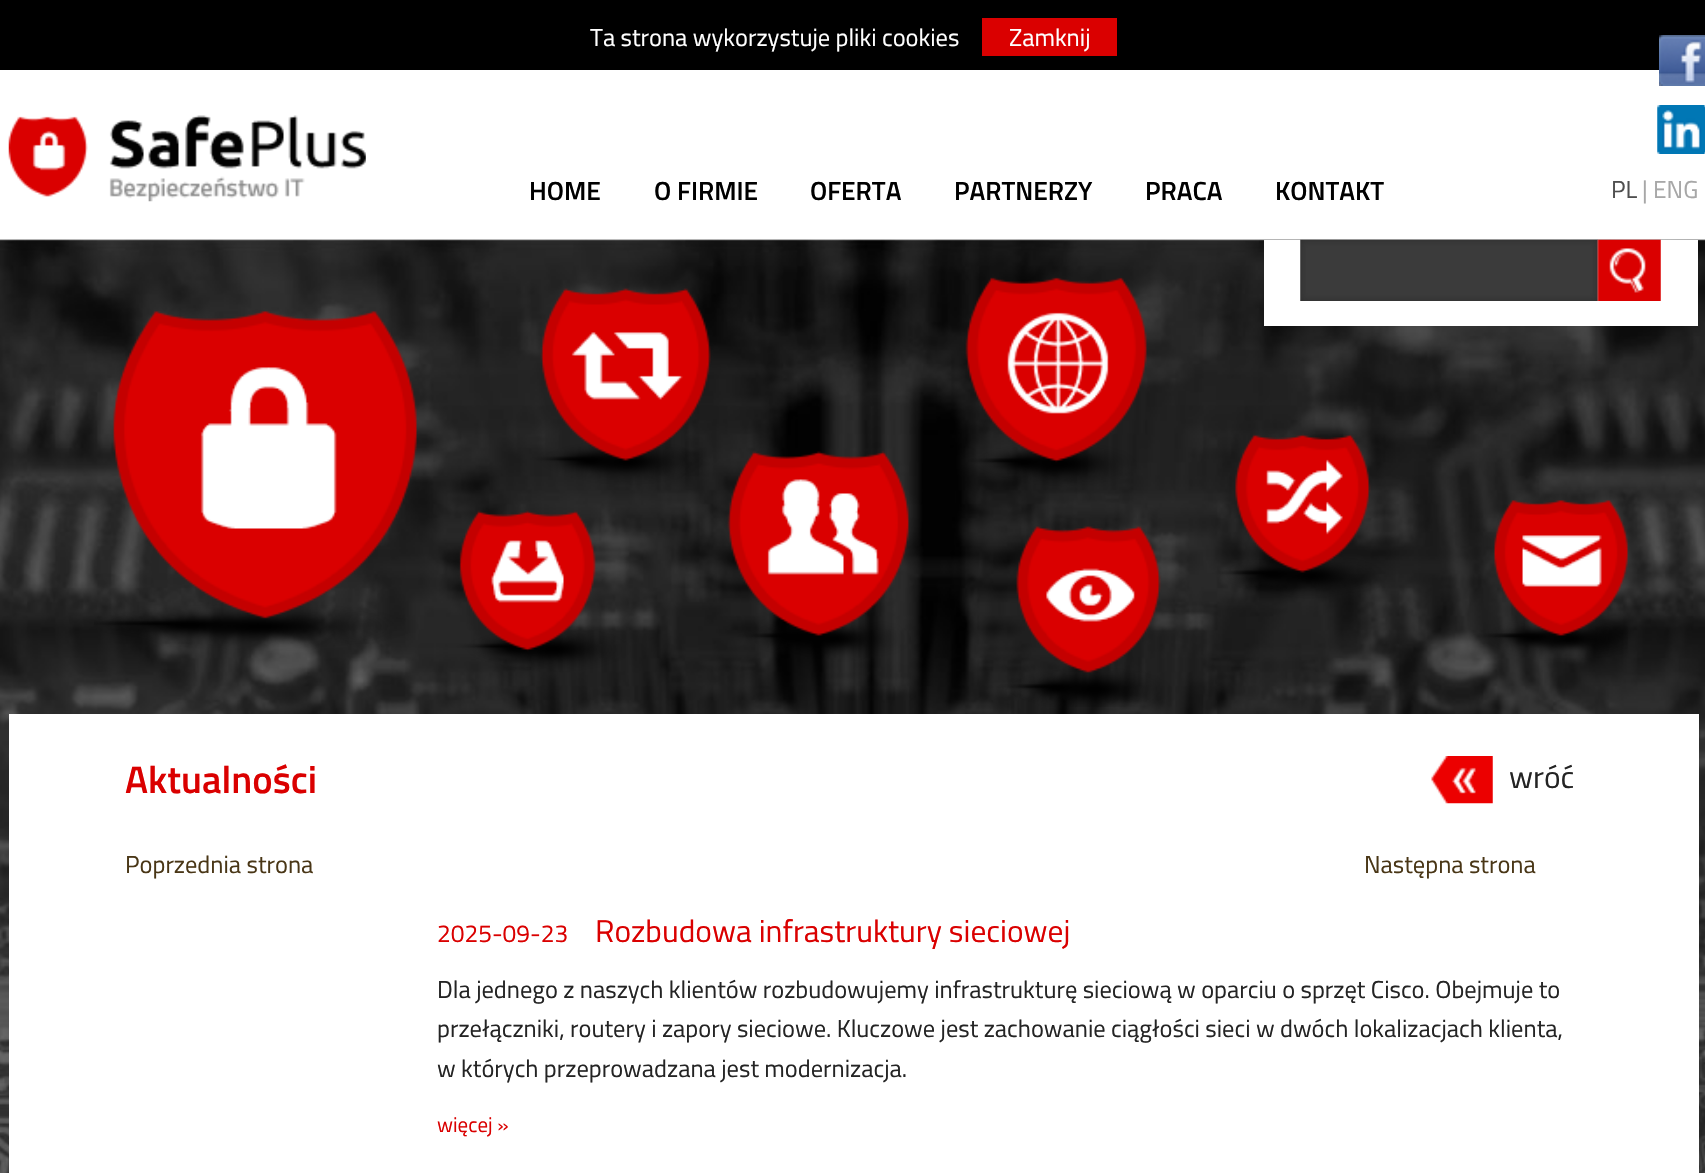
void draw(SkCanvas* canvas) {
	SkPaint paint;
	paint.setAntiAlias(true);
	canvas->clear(0xffffffff);
	paint.setColor(0xff000000);
	canvas->drawRect(SkRect::MakeXYWH(0, 0, 1705, 70), paint);
	SkFont f1(fontMgr->matchFamilyStyle("Titillium Web", SkFontStyle::Normal()), 24.5);
	f1.setSubpixel(true);
	paint.setColor(0xffffffff);
	canvas->drawString("Ta strona wykorzystuje pliki cookies", 590, 46, f1, paint);
	paint.setColor(0xffda0000);
	canvas->drawRect(SkRect::MakeXYWH(982, 18, 135, 38), paint);
	paint.setColor(0xffffffff);
	canvas->drawString("Zamknij", 1009, 46, f1, paint);
	canvas->drawImageRect(SkImages::DeferredFromEncodedData(SkData::MakeFromFileName("img1.png")), SkRect::MakeXYWH(1659, 35, 46, 51), SkSamplingOptions());
	canvas->drawImageRect(SkImages::DeferredFromEncodedData(SkData::MakeFromFileName("img2.png")), SkRect::MakeXYWH(1657, 105, 48, 49), SkSamplingOptions());
	canvas->drawImageRect(SkImages::DeferredFromEncodedData(SkData::MakeFromFileName("img3.png")), SkRect::MakeXYWH(0, 239, 1705, 934), SkSamplingOptions());
	canvas->drawImageRect(SkImages::DeferredFromEncodedData(SkData::MakeFromFileName("img4.png")), SkRect::MakeXYWH(8, 115, 358, 87), SkSamplingOptions());
	SkFont f2(fontMgr->matchFamilyStyle("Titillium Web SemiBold", SkFontStyle(600, SkFontStyle::kNormal_Width, SkFontStyle::kUpright_Slant)), 26.25);
	f2.setSubpixel(true);
	paint.setColor(0xff000000);
	canvas->drawString("HOME", 529, 200, f2, paint);
	canvas->drawString("O FIRMIE", 654, 200, f2, paint);
	canvas->drawString("OFERTA", 810, 200, f2, paint);
	canvas->drawString("PARTNERZY", 954, 200, f2, paint);
	canvas->drawString("PRACA", 1145, 200, f2, paint);
	canvas->drawString("KONTAKT", 1275, 200, f2, paint);
	paint.setColor(0xff4f4f4f);
	canvas->drawString("PL", 1611, 198, f1, paint);
	paint.setColor(0xffa7a7a7);
	canvas->drawString("| ENG", 1642, 198, f1, paint);
	canvas->drawImageRect(SkImages::DeferredFromEncodedData(SkData::MakeFromFileName("img7.png")), SkRect::MakeXYWH(94, 277, 1534, 430), SkSamplingOptions());
	paint.setColor(0xffffffff);
	canvas->drawRect(SkRect::MakeXYWH(1264, 240, 434, 86), paint);
	canvas->drawImageRect(SkImages::DeferredFromEncodedData(SkData::MakeFromFileName("img5.png")), SkRect::MakeXYWH(1300, 239, 298, 62), SkSamplingOptions());
	canvas->drawImageRect(SkImages::DeferredFromEncodedData(SkData::MakeFromFileName("img6.png")), SkRect::MakeXYWH(1597, 239, 64, 62), SkSamplingOptions());
	canvas->drawRect(SkRect::MakeXYWH(9, 714, 1690, 459), paint);
	SkFont f3(fontMgr->matchFamilyStyle("Titillium Web SemiBold", SkFontStyle(600, SkFontStyle::kNormal_Width, SkFontStyle::kUpright_Slant)), 38.5);
	f3.setSubpixel(true);
	paint.setColor(0xffda0000);
	canvas->drawString("Aktualności", 125, 793, f3, paint);
	canvas->drawImageRect(SkImages::DeferredFromEncodedData(SkData::MakeFromFileName("img8.png")), SkRect::MakeXYWH(1431, 756, 62, 48), SkSamplingOptions());
	SkFont f4(fontMgr->matchFamilyStyle("Titillium Web", SkFontStyle::Normal()), 31.5);
	f4.setSubpixel(true);
	paint.setColor(0xff242424);
	canvas->drawString("wróć", 1509, 788, f4, paint);
	paint.setColor(0xff493616);
	canvas->drawString("Poprzednia strona", 125, 873, f1, paint);
	canvas->drawString("Następna strona", 1364, 873, f1, paint);
	paint.setColor(0xffda0000);
	canvas->drawString("2025-09-23", 437, 942, f1, paint);
	canvas->drawString("Rozbudowa infrastruktury sieciowej", 595, 942, f4, paint);
	paint.setColor(0xff242424);
	canvas->drawString("Dla jednego z naszych klientów rozbudowujemy infrastrukturę sieciową w oparciu o sprzęt Cisco. Obejmuje to", 437, 998, f1, paint);
	canvas->drawString("przełączniki, routery i zapory sieciowe. Kluczowe jest zachowanie ciągłości sieci w dwóch lokalizacjach klienta,", 437, 1037, f1, paint);
	canvas->drawString("w których przeprowadzana jest modernizacja.", 437, 1077, f1, paint);
	SkFont f5(fontMgr->matchFamilyStyle("Titillium Web", SkFontStyle::Normal()), 21);
	f5.setSubpixel(true);
	paint.setColor(0xffda0000);
	canvas->drawString("więcej »", 437, 1132, f5, paint);
}
